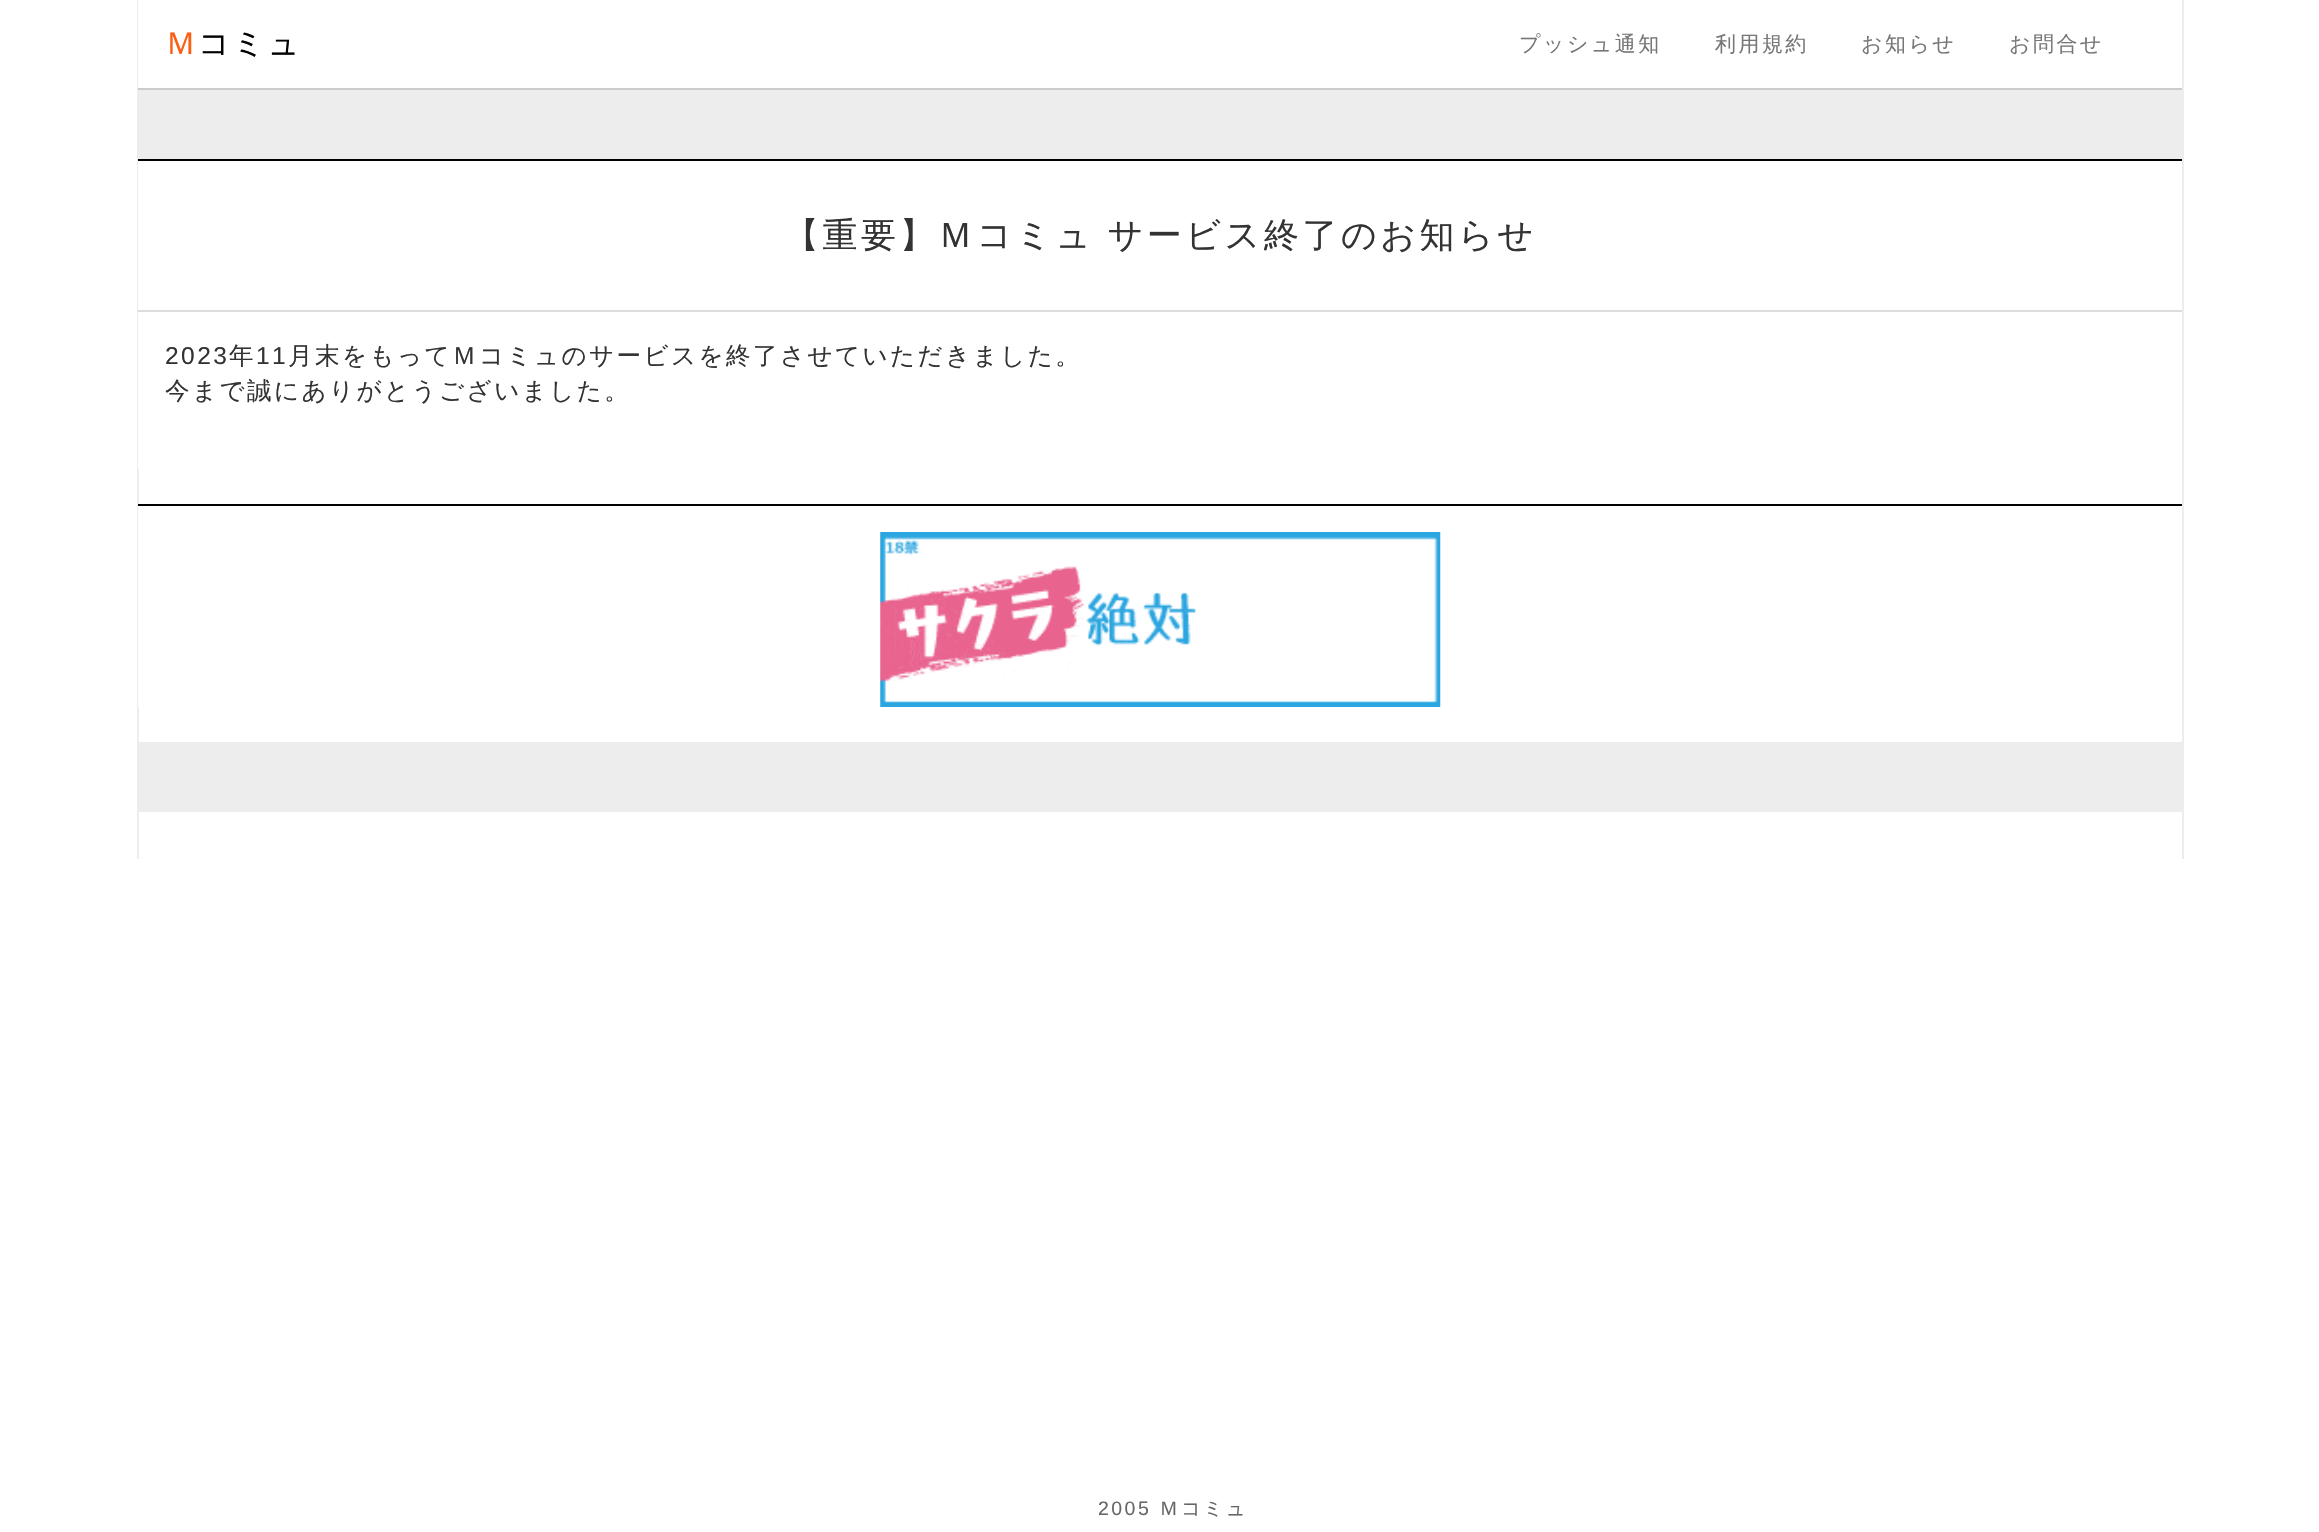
void draw(SkCanvas* canvas) {
	SkPaint paint;
	paint.setAntiAlias(true);
	auto spacedText = [&](const char* s, float x, float y, const SkFont& font, const SkPaint& ink, float letter, float word) {
		std::vector<SkGlyphID> glyphs(font.countText(s, strlen(s), SkTextEncoding::kUTF8));
		std::vector<float> xs(glyphs.size());
		font.textToGlyphs(s, strlen(s), SkTextEncoding::kUTF8, glyphs);
		font.getXPos(glyphs, xs, x);
		float extra = 0;
		for (size_t i = 0; i < glyphs.size(); i++) {
			xs[i] += extra;
			extra += letter + word * (glyphs[i] == font.unicharToGlyph(' '));
		}
		canvas->drawTextBlob(SkTextBlob::MakeFromPosHGlyphs(glyphs, xs, y, font), 0, 0, ink);
	};
	canvas->clear(0xffffffff);
	paint.setColor(0xffededed);
	canvas->drawRect(SkRect::MakeXYWH(2182, 0, 2, 859), paint);
	canvas->drawRect(SkRect::MakeXYWH(137, 0, 2, 859), paint);
	paint.setColor(0xffffffff);
	canvas->drawRect(SkRect::MakeXYWH(138, 0, 1, 88), paint);
	paint.setColor(0xffcccccc);
	canvas->drawRect(SkRect::MakeXYWH(138, 88, 2044, 2), paint);
	SkFont f1(fontMgr->matchFamilyStyle("WenQuanYi Zen Hei", SkFontStyle(500, SkFontStyle::kNormal_Width, SkFontStyle::kUpright_Slant)), 31.5);
	f1.setSubpixel(true);
	paint.setColor(0xfffa6015);
	spacedText("Ｍ", 165, 54, f1, paint, 2.45, 0);
	paint.setColor(0xff000000);
	spacedText("コミュ", 198, 54, f1, paint, 2.45, 0);
	SkFont f2(fontMgr->matchFamilyStyle("WenQuanYi Zen Hei", SkFontStyle(500, SkFontStyle::kNormal_Width, SkFontStyle::kUpright_Slant)), 21);
	f2.setSubpixel(true);
	paint.setColor(0xff777777);
	spacedText("プッシュ通知", 1519, 51, f2, paint, 2.45, 0);
	spacedText("利用規約", 1715, 51, f2, paint, 2.45, 0);
	spacedText("お知らせ", 1861, 51, f2, paint, 2.45, 0);
	spacedText("お問合せ", 2009, 51, f2, paint, 2.45, 0);
	paint.setColor(0xffededed);
	canvas->drawRect(SkRect::MakeXYWH(139, 90, 2043, 69), paint);
	paint.setColor(0xffffffff);
	canvas->drawRect(SkRect::MakeXYWH(138, 161, 1, 308), paint);
	paint.setColor(0xff000000);
	canvas->drawRect(SkRect::MakeXYWH(138, 159, 2044, 2), paint);
	SkFont f3(fontMgr->matchFamilyStyle("WenQuanYi Zen Hei", SkFontStyle(500, SkFontStyle::kNormal_Width, SkFontStyle::kUpright_Slant)), 35);
	f3.setSubpixel(true);
	paint.setColor(0xff333333);
	spacedText("【重要】Ｍコミュ サービス終了のお知らせ", 784, 247, f3, paint, 3.5, -1);
	paint.setColor(0xffdddddd);
	canvas->drawRect(SkRect::MakeXYWH(138, 310, 2044, 2), paint);
	SkFont f4(fontMgr->matchFamilyStyle("Liberation Sans", SkFontStyle::Normal()), 24.5);
	f4.setSubpixel(true);
	paint.setColor(0xff333333);
	spacedText("2023", 165, 364, f4, paint, 2.45, 0);
	SkFont f5(fontMgr->matchFamilyStyle("WenQuanYi Zen Hei", SkFontStyle(500, SkFontStyle::kNormal_Width, SkFontStyle::kUpright_Slant)), 24.5);
	f5.setSubpixel(true);
	spacedText("年", 229, 364, f5, paint, 2.45, 0);
	spacedText("11", 256, 364, f4, paint, 2.45, 0);
	spacedText("月末をもってＭコミュのサービスを終了させていただきました。", 288, 364, f5, paint, 2.45, 0);
	spacedText("今まで誠にありがとうございました。", 165, 399, f5, paint, 2.45, 0);
	paint.setColor(0xffffffff);
	canvas->drawRect(SkRect::MakeXYWH(138, 506, 1, 201), paint);
	paint.setColor(0xff000000);
	canvas->drawRect(SkRect::MakeXYWH(138, 504, 2044, 2), paint);
	canvas->drawImageRect(SkImages::DeferredFromEncodedData(SkData::MakeFromFileName("img1.png")), SkRect::MakeXYWH(880, 532, 561, 175), SkSamplingOptions());
	paint.setColor(0xffededed);
	canvas->drawRect(SkRect::MakeXYWH(139, 742, 2043, 70), paint);
	SkFont f6(fontMgr->matchFamilyStyle("Liberation Sans", SkFontStyle::Normal()), 19.5);
	f6.setSubpixel(true);
	paint.setColor(0xff666666);
	spacedText("2005", 1098, 1515, f6, paint, 2.45, 0);
	SkFont f7(fontMgr->matchFamilyStyle("WenQuanYi Zen Hei", SkFontStyle(500, SkFontStyle::kNormal_Width, SkFontStyle::kUpright_Slant)), 19.5);
	f7.setSubpixel(true);
	spacedText("Ｍコミュ", 1159, 1515, f7, paint, 2.45, 0);
}
